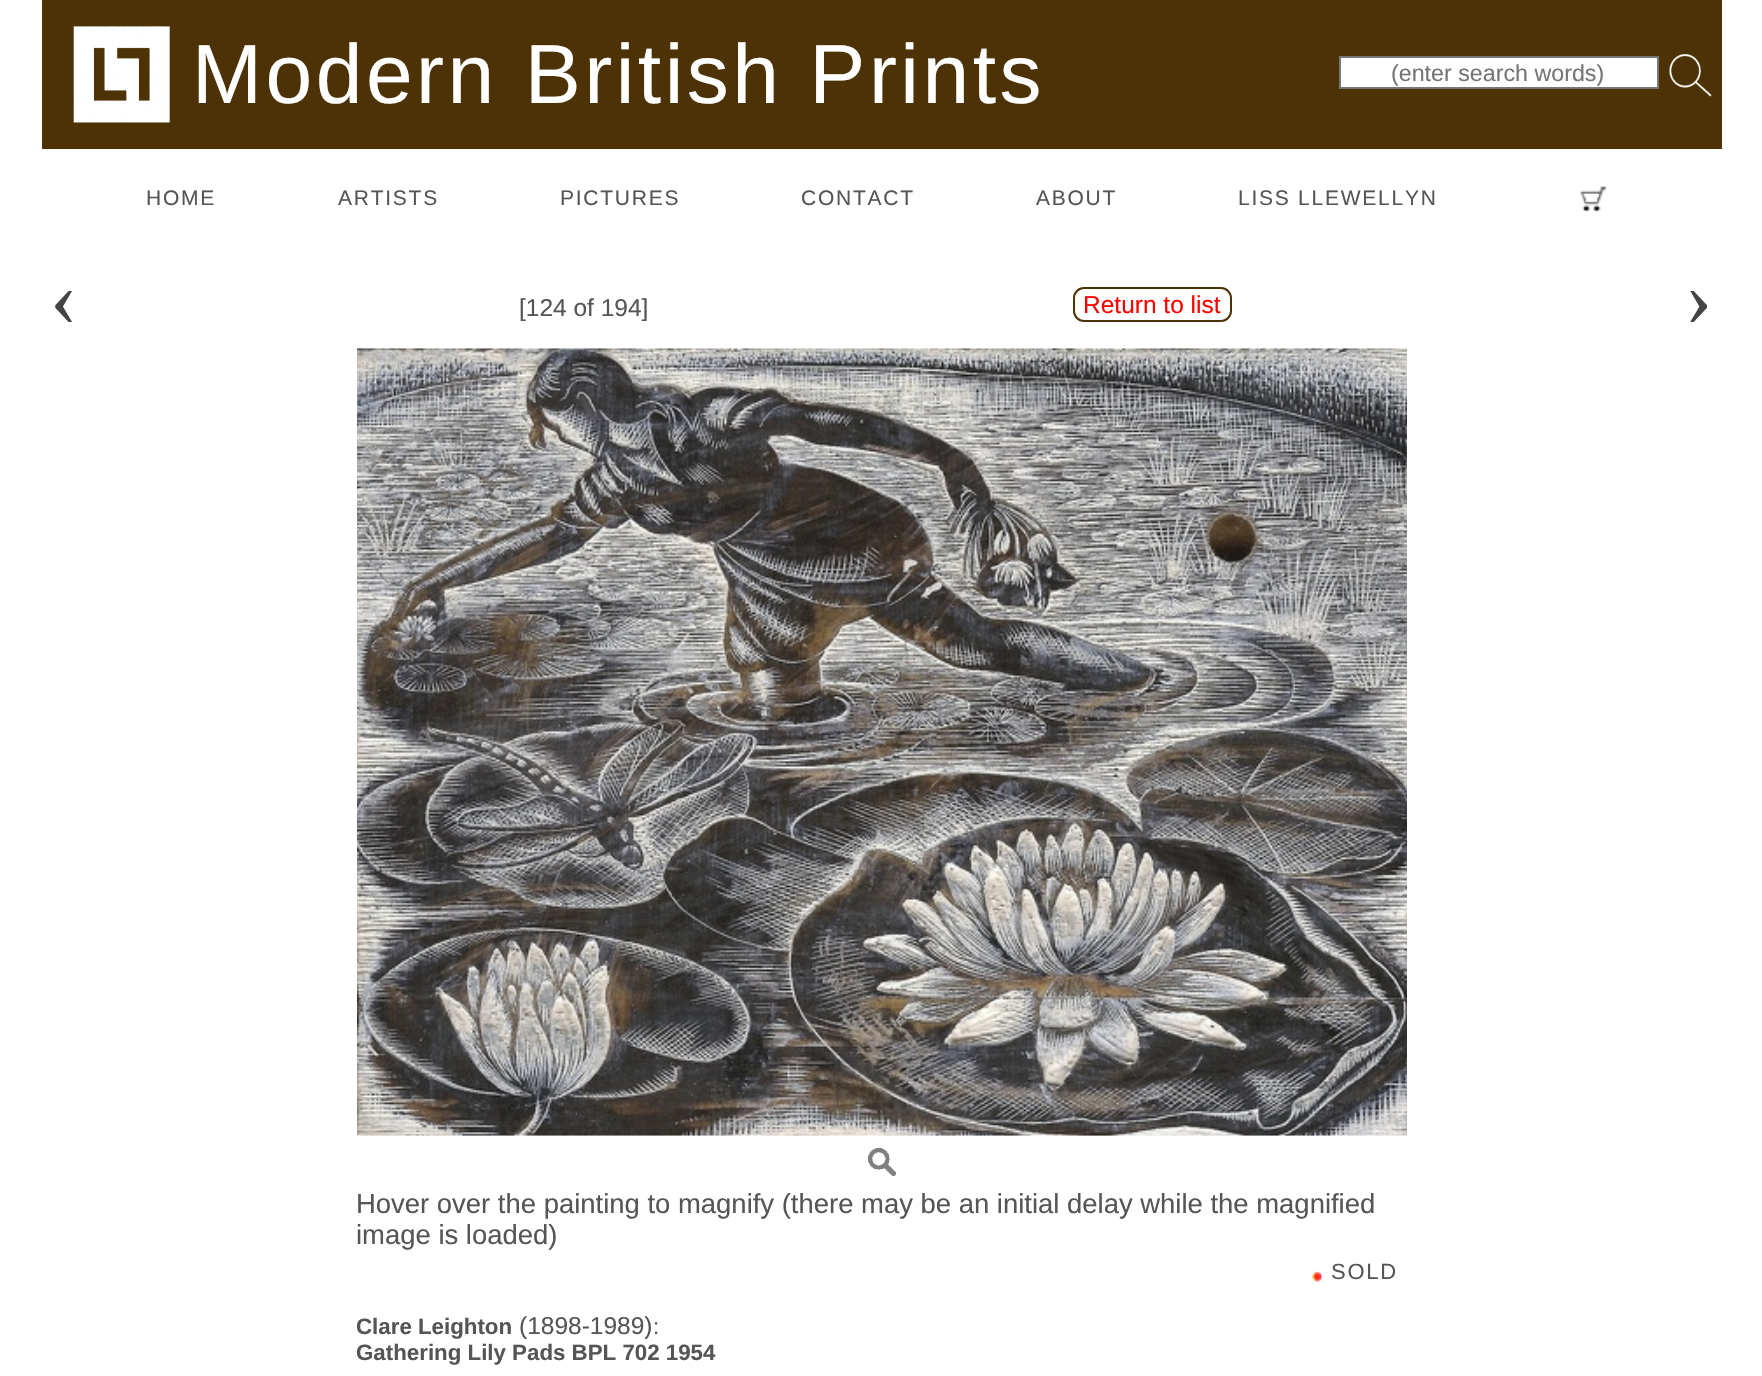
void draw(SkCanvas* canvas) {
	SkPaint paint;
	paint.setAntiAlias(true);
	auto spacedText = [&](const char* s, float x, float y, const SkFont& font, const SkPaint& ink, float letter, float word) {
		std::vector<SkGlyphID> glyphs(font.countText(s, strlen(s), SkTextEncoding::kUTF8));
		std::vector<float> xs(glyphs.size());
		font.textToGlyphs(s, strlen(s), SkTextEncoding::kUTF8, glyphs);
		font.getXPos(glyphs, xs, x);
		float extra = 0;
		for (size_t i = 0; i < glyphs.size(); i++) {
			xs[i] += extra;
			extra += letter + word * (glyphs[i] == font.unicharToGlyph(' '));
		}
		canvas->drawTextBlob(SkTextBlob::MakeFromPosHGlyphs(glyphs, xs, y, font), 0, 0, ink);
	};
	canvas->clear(0xffffffff);
	paint.setColor(0xff4c3204);
	canvas->drawRect(SkRect::MakeXYWH(42, 0, 1680, 149), paint);
	canvas->drawImageRect(SkImages::DeferredFromEncodedData(SkData::MakeFromFileName("img1.png")), SkRect::MakeXYWH(73, 26, 97, 97), SkSamplingOptions());
	SkFont f1(fontMgr->matchFamilyStyle("Arimo", SkFontStyle::Normal()), 84);
	f1.setSubpixel(true);
	paint.setColor(0xffffffff);
	spacedText("Modern British Prints", 192, 103, f1, paint, 3.5, 0);
	canvas->drawRect(SkRect::MakeXYWH(1340, 57, 318, 31), paint);
	paint.setStroke(true);
	paint.setStrokeWidth(2);
	paint.setColor(0xff777777);
	canvas->drawRect(SkRect::MakeXYWH(1340, 57, 318, 31), paint);
	SkFont f2(fontMgr->matchFamilyStyle("Liberation Sans", SkFontStyle::Normal()), 23.25);
	f2.setSubpixel(true);
	paint.setStroke(false);
	paint.setColor(0xff757575);
	canvas->drawString("(enter search words)", 1391, 81, f2, paint);
	canvas->drawImageRect(SkImages::DeferredFromEncodedData(SkData::MakeFromFileName("img2.png")), SkRect::MakeXYWH(1669, 54, 43, 43), SkSamplingOptions());
	SkFont f3(fontMgr->matchFamilyStyle("Arimo", SkFontStyle::Normal()), 21);
	f3.setSubpixel(true);
	paint.setColor(0xff555555);
	spacedText("HOME", 146, 205, f3, paint, 1.75, 0);
	spacedText("ARTISTS", 338, 205, f3, paint, 1.75, 0);
	spacedText("PICTURES", 560, 205, f3, paint, 1.75, 0);
	spacedText("CONTACT", 801, 205, f3, paint, 1.75, 0);
	spacedText("ABOUT", 1036, 205, f3, paint, 1.75, 0);
	spacedText("LISS LLEWELLYN", 1238, 205, f3, paint, 1.75, 0);
	canvas->drawImageRect(SkImages::DeferredFromEncodedData(SkData::MakeFromFileName("img3.png")), SkRect::MakeXYWH(1580, 186, 28, 27), SkSamplingOptions());
	SkFont f4(fontMgr->matchFamilyStyle("Liberation Serif", SkFontStyle::Normal()), 82);
	f4.setSubpixel(true);
	paint.setColor(0xff444444);
	canvas->drawString("‹", 50, 325, f4, paint);
	SkFont f5(fontMgr->matchFamilyStyle("Arimo", SkFontStyle::Normal()), 24.5);
	f5.setSubpixel(true);
	paint.setColor(0xff555555);
	canvas->drawString("[124 of 194]", 519, 316, f5, paint);
	paint.setStroke(true);
	paint.setColor(0xff4c3204);
	canvas->drawRoundRect(SkRect::MakeXYWH(1074, 288, 157, 33), 10, 10, paint);
	paint.setStroke(false);
	paint.setColor(0xffff0000);
	canvas->drawString("Return to list", 1083, 313, f5, paint);
	paint.setColor(0xff444444);
	canvas->drawString("›", 1685, 325, f4, paint);
	canvas->drawImageRect(SkImages::DeferredFromEncodedData(SkData::MakeFromFileName("img4.png")), SkRect::MakeXYWH(357, 348, 1050, 788), SkSamplingOptions());
	canvas->drawImageRect(SkImages::DeferredFromEncodedData(SkData::MakeFromFileName("img5.png")), SkRect::MakeXYWH(868, 1148, 28, 28), SkSamplingOptions());
	SkFont f6(fontMgr->matchFamilyStyle("Arimo", SkFontStyle::Normal()), 27.45);
	f6.setSubpixel(true);
	paint.setColor(0xff555555);
	canvas->drawString("Hover over the painting to magnify (there may be an initial delay while the magnified", 356, 1213, f6, paint);
	canvas->drawString("image is loaded)", 356, 1244, f6, paint);
	canvas->drawImageRect(SkImages::DeferredFromEncodedData(SkData::MakeFromFileName("img6.png")), SkRect::MakeXYWH(1312, 1271, 11, 11), SkSamplingOptions());
	SkFont f7(fontMgr->matchFamilyStyle("Arimo", SkFontStyle::Normal()), 22);
	f7.setSubpixel(true);
	spacedText("SOLD", 1331, 1279, f7, paint, 1.75, 0);
	SkFont f8(fontMgr->matchFamilyStyle("Arimo", SkFontStyle::Bold()), 22.3);
	f8.setSubpixel(true);
	canvas->drawString("Clare Leighton", 356, 1334, f8, paint);
	canvas->drawString("(1898-1989)", 519, 1334, f5, paint);
	SkFont f9(fontMgr->matchFamilyStyle("Arimo", SkFontStyle::Normal()), 22.3);
	f9.setSubpixel(true);
	canvas->drawString(":", 653, 1334, f9, paint);
	canvas->drawString("Gathering Lily Pads BPL 702 1954", 356, 1360, f8, paint);
}
